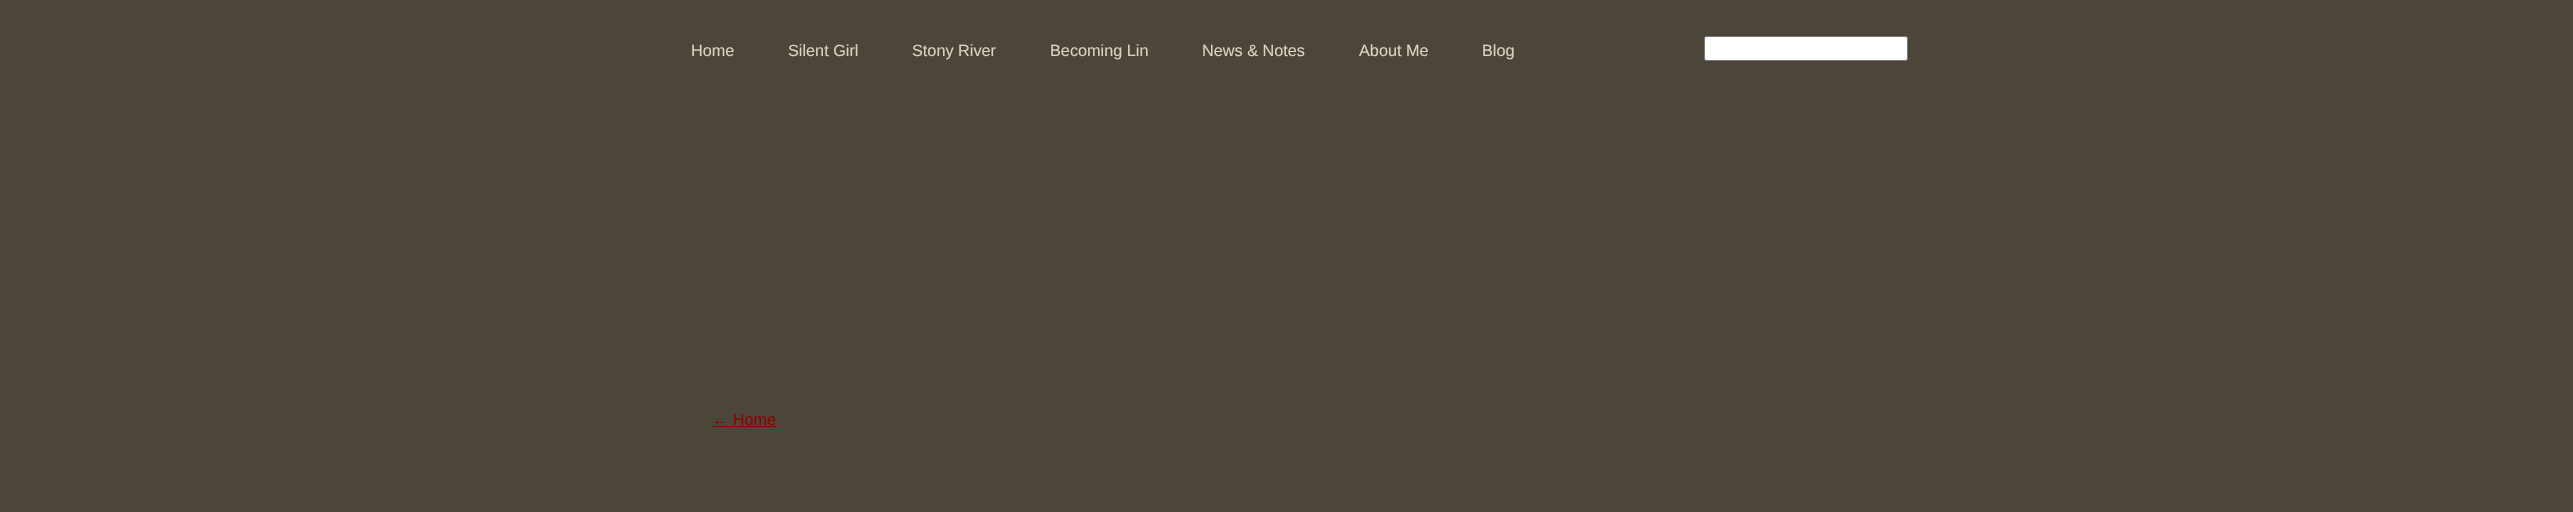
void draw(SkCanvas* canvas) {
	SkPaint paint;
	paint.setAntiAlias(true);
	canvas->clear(0xff4c453a);
	SkFont f1(fontMgr->matchFamilyStyle("Liberation Sans", SkFontStyle::Normal()), 16.25);
	f1.setSubpixel(true);
	paint.setColor(0xffddd2c0);
	canvas->drawString("Home", 691, 56, f1, paint);
	canvas->drawString("Silent Girl", 788, 56, f1, paint);
	canvas->drawString("Stony River", 912, 56, f1, paint);
	canvas->drawString("Becoming Lin", 1050, 56, f1, paint);
	canvas->drawString("News & Notes", 1202, 56, f1, paint);
	canvas->drawString("About Me", 1359, 56, f1, paint);
	canvas->drawString("Blog", 1482, 56, f1, paint);
	paint.setColor(0xffffffff);
	canvas->drawRoundRect(SkRect::MakeXYWH(1704.5, 36.5, 203, 24), 2, 2, paint);
	paint.setStroke(true);
	paint.setStrokeWidth(1);
	paint.setColor(0xff767676);
	canvas->drawRoundRect(SkRect::MakeXYWH(1704.5, 36.5, 203, 24), 2, 2, paint);
	paint.setStroke(false);
	paint.setColor(0xff8f0100);
	canvas->drawString("← Home", 712, 425, f1, paint);
	canvas->drawRect(SkRect::MakeXYWH(713, 426, 63, 1), paint);
}
